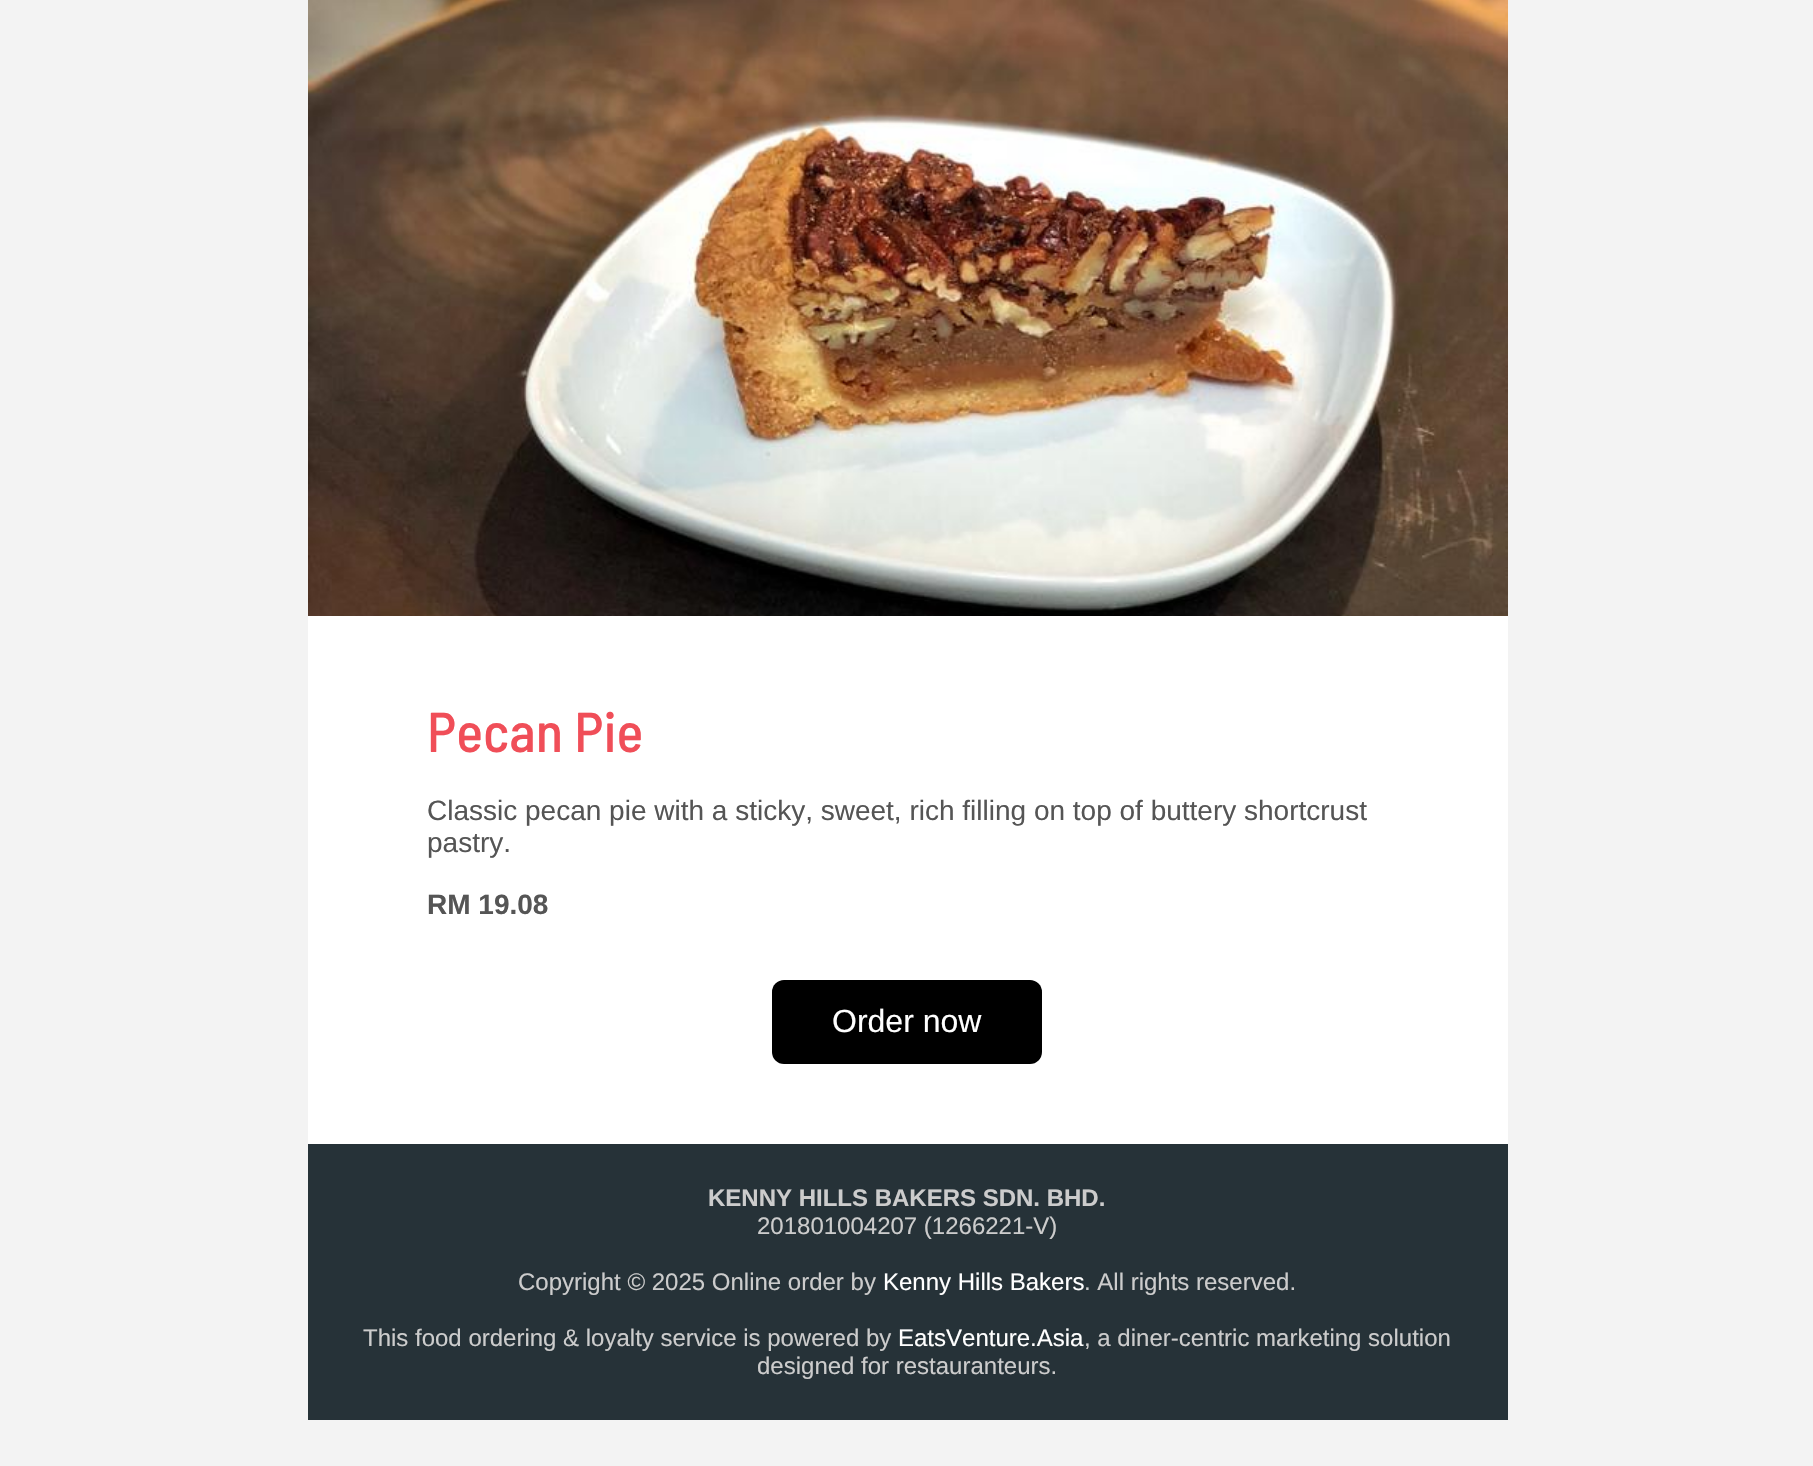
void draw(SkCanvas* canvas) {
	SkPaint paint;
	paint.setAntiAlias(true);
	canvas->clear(0xfff3f3f3);
	paint.setColor(0xffffffff);
	canvas->drawRect(SkRect::MakeXYWH(308, 616, 1200, 528), paint);
	canvas->drawImageRect(SkImages::DeferredFromEncodedData(SkData::MakeFromFileName("img1.png")), SkRect::MakeXYWH(308, 0, 1200, 616), SkSamplingOptions());
	SkFont f1(fontMgr->matchFamilyStyle("Barlow Semi Condensed", SkFontStyle(500, SkFontStyle::kNormal_Width, SkFontStyle::kUpright_Slant)), 56);
	f1.setSubpixel(true);
	paint.setColor(0xfff04e58);
	canvas->drawString("Pecan Pie", 427, 752, f1, paint);
	SkFont f2(fontMgr->matchFamilyStyle("Liberation Sans", SkFontStyle::Normal()), 28);
	f2.setSubpixel(true);
	paint.setColor(0xff555555);
	canvas->drawString("Classic pecan pie with a sticky, sweet, rich filling on top of buttery shortcrust", 427, 820, f2, paint);
	canvas->drawString("pastry.", 427, 852, f2, paint);
	SkFont f3(fontMgr->matchFamilyStyle("Liberation Sans", SkFontStyle::Bold()), 28);
	f3.setSubpixel(true);
	canvas->drawString("RM 19.08", 427, 914, f3, paint);
	paint.setColor(0xff000000);
	canvas->drawRoundRect(SkRect::MakeXYWH(772, 980, 270, 84), 12, 12, paint);
	SkFont f4(fontMgr->matchFamilyStyle("Liberation Sans", SkFontStyle::Normal()), 32);
	f4.setSubpixel(true);
	paint.setColor(0xffffffff);
	canvas->drawString("Order now", 832, 1032, f4, paint);
	paint.setColor(0xff263238);
	canvas->drawRect(SkRect::MakeXYWH(308, 1144, 1200, 276), paint);
	SkFont f5(fontMgr->matchFamilyStyle("Liberation Sans", SkFontStyle::Bold()), 24);
	f5.setSubpixel(true);
	paint.setColor(0xffcccccc);
	canvas->drawString("KENNY HILLS BAKERS SDN. BHD.", 708, 1206, f5, paint);
	SkFont f6(fontMgr->matchFamilyStyle("Liberation Sans", SkFontStyle::Normal()), 24);
	f6.setSubpixel(true);
	canvas->drawString("201801004207 (1266221-V)", 757, 1234, f6, paint);
	canvas->drawString("Copyright © 2025 Online order by", 518, 1290, f6, paint);
	paint.setColor(0xffffffff);
	canvas->drawString("Kenny Hills Bakers", 883, 1290, f6, paint);
	paint.setColor(0xffcccccc);
	canvas->drawString(". All rights reserved.", 1084, 1290, f6, paint);
	canvas->drawString("This food ordering & loyalty service is powered by", 363, 1346, f6, paint);
	paint.setColor(0xffffffff);
	canvas->drawString("EatsVenture.Asia", 898, 1346, f6, paint);
	paint.setColor(0xffcccccc);
	canvas->drawString(", a diner-centric marketing solution", 1084, 1346, f6, paint);
	canvas->drawString("designed for restauranteurs.", 757, 1374, f6, paint);
}
